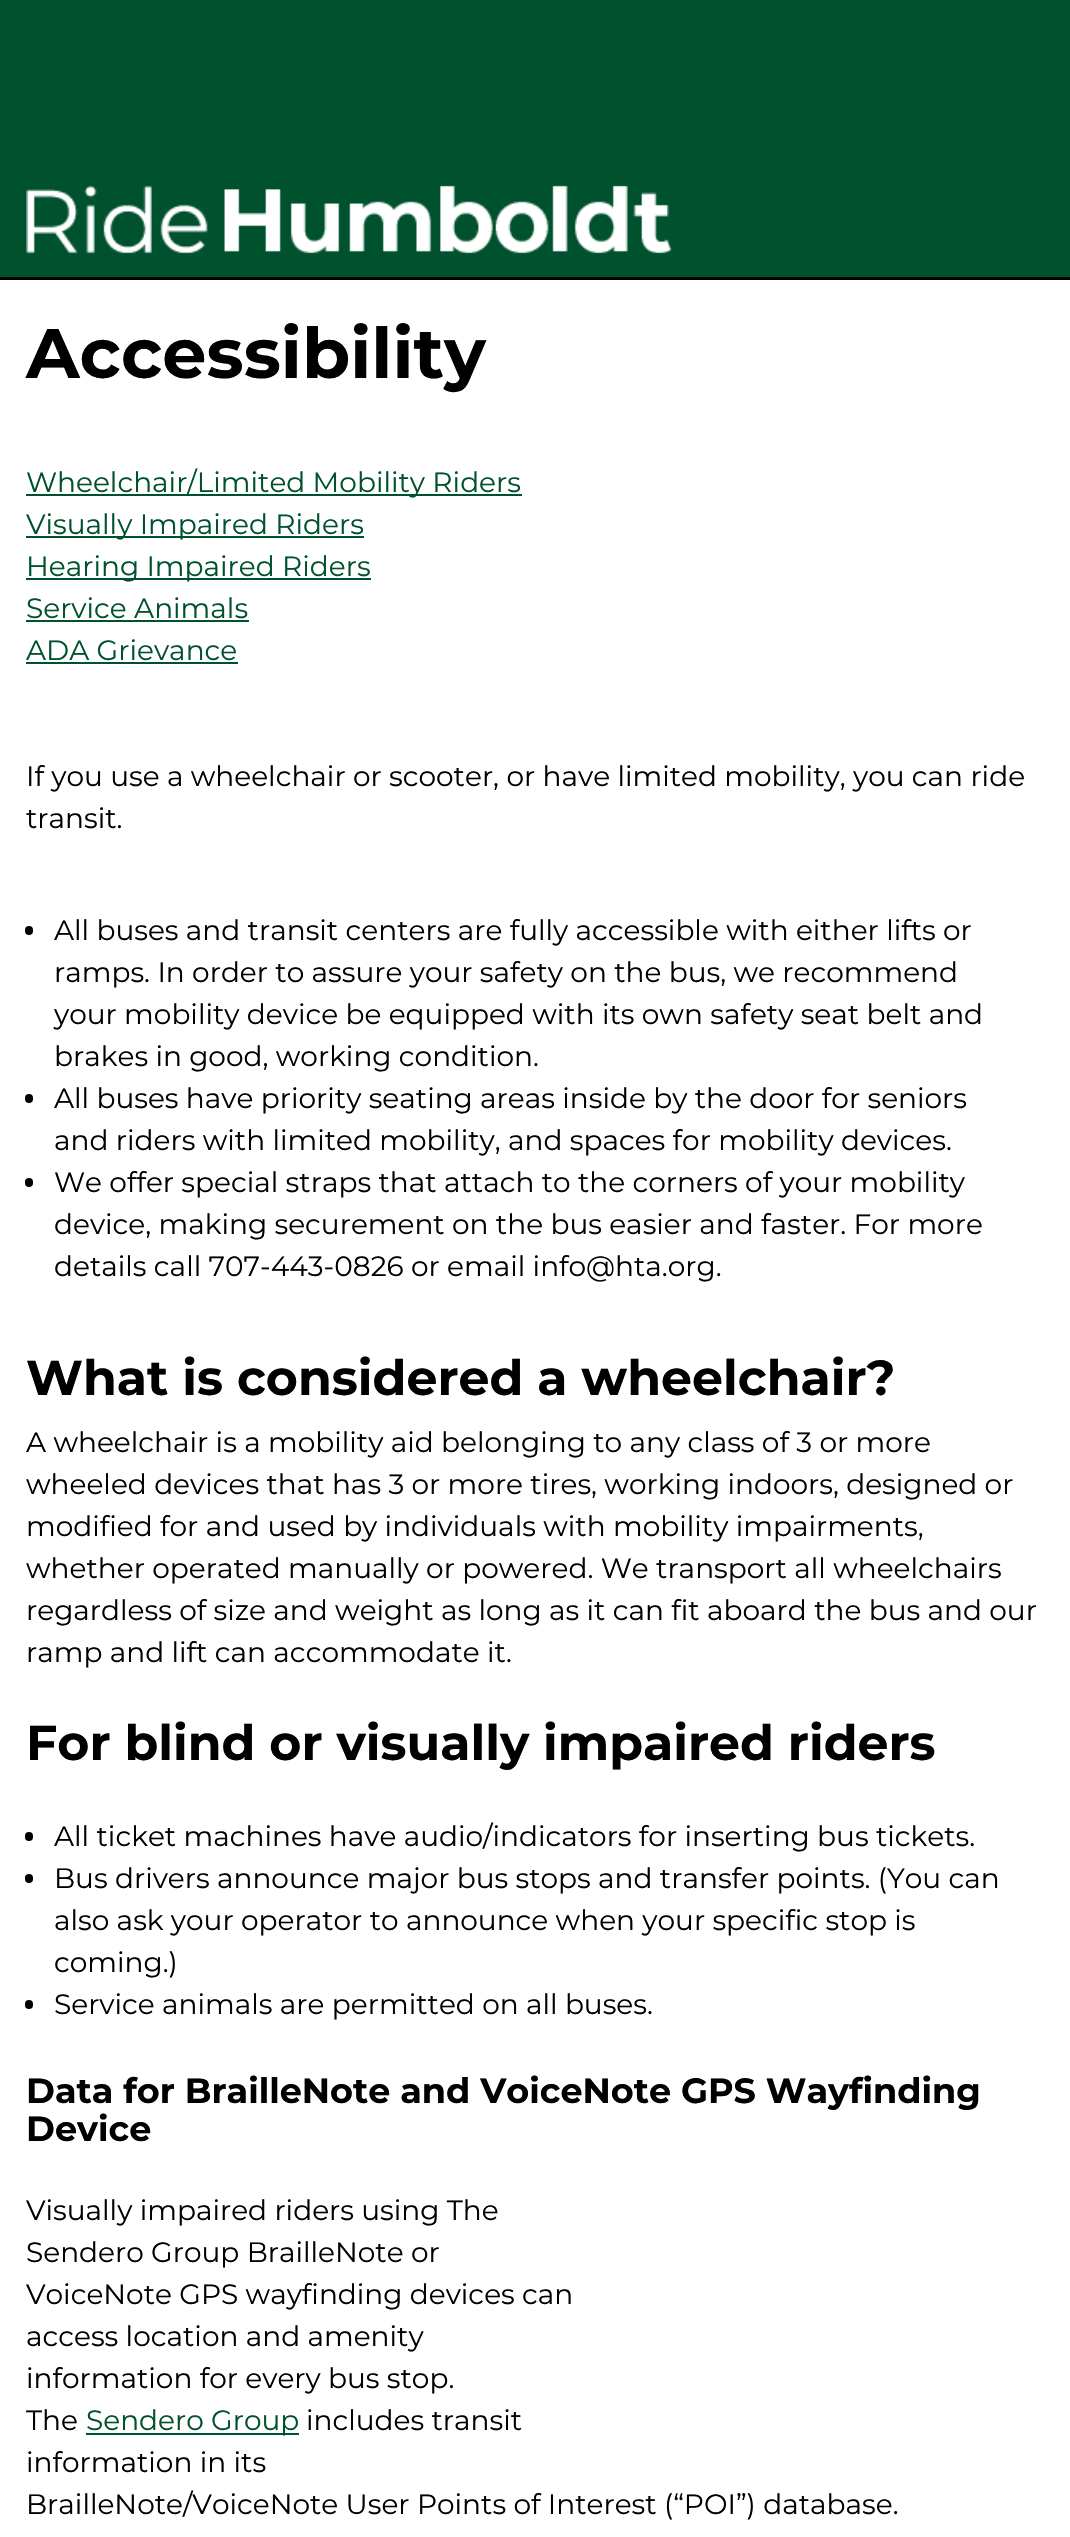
void draw(SkCanvas* canvas) {
	SkPaint paint;
	paint.setAntiAlias(true);
	canvas->clear(0xff00512e);
	paint.setColor(0xff000000);
	canvas->drawRect(SkRect::MakeXYWH(0, 277, 1070, 3), paint);
	canvas->drawImageRect(SkImages::DeferredFromEncodedData(SkData::MakeFromFileName("img1.png")), SkRect::MakeXYWH(26, 185, 646, 69), SkSamplingOptions());
	paint.setColor(0xffffffff);
	canvas->drawRect(SkRect::MakeXYWH(0, 280, 1070, 2257), paint);
	SkFont f1(fontMgr->matchFamilyStyle("Montserrat", SkFontStyle::Bold()), 70);
	f1.setSubpixel(true);
	paint.setColor(0xff000000);
	canvas->drawString("Accessibility", 26, 378, f1, paint);
	paint.setColor(0xff00512e);
	canvas->drawRect(SkRect::MakeXYWH(26, 494, 496, 2), paint);
	SkFont f2(fontMgr->matchFamilyStyle("Montserrat", SkFontStyle::Normal()), 28);
	f2.setSubpixel(true);
	canvas->drawString("Wheelchair/Limited Mobility Riders", 26, 492, f2, paint);
	canvas->drawRect(SkRect::MakeXYWH(26, 536, 338, 2), paint);
	canvas->drawString("Visually Impaired Riders", 26, 534, f2, paint);
	canvas->drawRect(SkRect::MakeXYWH(26, 578, 345, 2), paint);
	canvas->drawString("Hearing Impaired Riders", 26, 576, f2, paint);
	canvas->drawString("Service Animals", 26, 618, f2, paint);
	canvas->drawRect(SkRect::MakeXYWH(26, 620, 223, 2), paint);
	canvas->drawString("ADA Grievance", 26, 660, f2, paint);
	canvas->drawRect(SkRect::MakeXYWH(26, 662, 212, 2), paint);
	paint.setColor(0xff000000);
	canvas->drawString("If you use a wheelchair or scooter, or have limited mobility, you can ride", 26, 786, f2, paint);
	canvas->drawString("transit.", 26, 828, f2, paint);
	canvas->drawRoundRect(SkRect::MakeXYWH(25, 926, 8, 9), 4, 4, paint);
	canvas->drawString("All buses and transit centers are fully accessible with either lifts or", 54, 940, f2, paint);
	canvas->drawString("ramps. In order to assure your safety on the bus, we recommend", 54, 982, f2, paint);
	canvas->drawString("your mobility device be equipped with its own safety seat belt and", 54, 1024, f2, paint);
	canvas->drawString("brakes in good, working condition.", 54, 1066, f2, paint);
	canvas->drawRoundRect(SkRect::MakeXYWH(25, 1094, 8, 9), 4, 4, paint);
	canvas->drawString("All buses have priority seating areas inside by the door for seniors", 54, 1108, f2, paint);
	canvas->drawString("and riders with limited mobility, and spaces for mobility devices.", 54, 1150, f2, paint);
	canvas->drawRoundRect(SkRect::MakeXYWH(25, 1178, 8, 9), 4, 4, paint);
	canvas->drawString("We offer special straps that attach to the corners of your mobility", 54, 1192, f2, paint);
	canvas->drawString("device, making securement on the bus easier and faster. For more", 54, 1234, f2, paint);
	canvas->drawString("details call 707-443-0826 or email info@hta.org.", 54, 1276, f2, paint);
	SkFont f3(fontMgr->matchFamilyStyle("Montserrat", SkFontStyle::Bold()), 49);
	f3.setSubpixel(true);
	canvas->drawString("What is considered a wheelchair?", 26, 1395, f3, paint);
	canvas->drawString("A wheelchair is a mobility aid belonging to any class of 3 or more", 26, 1452, f2, paint);
	canvas->drawString("wheeled devices that has 3 or more tires, working indoors, designed or", 26, 1494, f2, paint);
	canvas->drawString("modified for and used by individuals with mobility impairments,", 26, 1536, f2, paint);
	canvas->drawString("whether operated manually or powered. We transport all wheelchairs", 26, 1578, f2, paint);
	canvas->drawString("regardless of size and weight as long as it can fit aboard the bus and our", 26, 1620, f2, paint);
	canvas->drawString("ramp and lift can accommodate it.", 26, 1662, f2, paint);
	canvas->drawString("For blind or visually impaired riders", 26, 1760, f3, paint);
	canvas->drawRoundRect(SkRect::MakeXYWH(25, 1832, 8, 9), 4, 4, paint);
	canvas->drawString("All ticket machines have audio/indicators for inserting bus tickets.", 54, 1846, f2, paint);
	canvas->drawRoundRect(SkRect::MakeXYWH(25, 1874, 8, 9), 4, 4, paint);
	canvas->drawString("Bus drivers announce major bus stops and transfer points. (You can", 54, 1888, f2, paint);
	canvas->drawString("also ask your operator to announce when your specific stop is", 54, 1930, f2, paint);
	canvas->drawString("coming.)", 54, 1972, f2, paint);
	canvas->drawRoundRect(SkRect::MakeXYWH(25, 2000, 8, 9), 4, 4, paint);
	canvas->drawString("Service animals are permitted on all buses.", 54, 2014, f2, paint);
	SkFont f4(fontMgr->matchFamilyStyle("Montserrat", SkFontStyle::Bold()), 35);
	f4.setSubpixel(true);
	canvas->drawString("Data for BrailleNote and VoiceNote GPS Wayfinding", 26, 2103, f4, paint);
	canvas->drawString("Device", 26, 2141, f4, paint);
	canvas->drawString("Visually impaired riders using The", 26, 2220, f2, paint);
	canvas->drawString("Sendero Group BrailleNote or", 26, 2262, f2, paint);
	canvas->drawString("VoiceNote GPS wayfinding devices can", 26, 2304, f2, paint);
	canvas->drawString("access location and amenity", 26, 2346, f2, paint);
	canvas->drawString("information for every bus stop.", 26, 2388, f2, paint);
	canvas->drawString("The", 26, 2430, f2, paint);
	paint.setColor(0xff00512e);
	canvas->drawRect(SkRect::MakeXYWH(86, 2433, 213, 2), paint);
	canvas->drawString("Sendero Group", 86, 2430, f2, paint);
	paint.setColor(0xff000000);
	canvas->drawString("includes transit", 306, 2430, f2, paint);
	canvas->drawString("information in its", 26, 2472, f2, paint);
	canvas->drawString("BrailleNote/VoiceNote User Points of Interest (“POI”) database.", 26, 2514, f2, paint);
}
